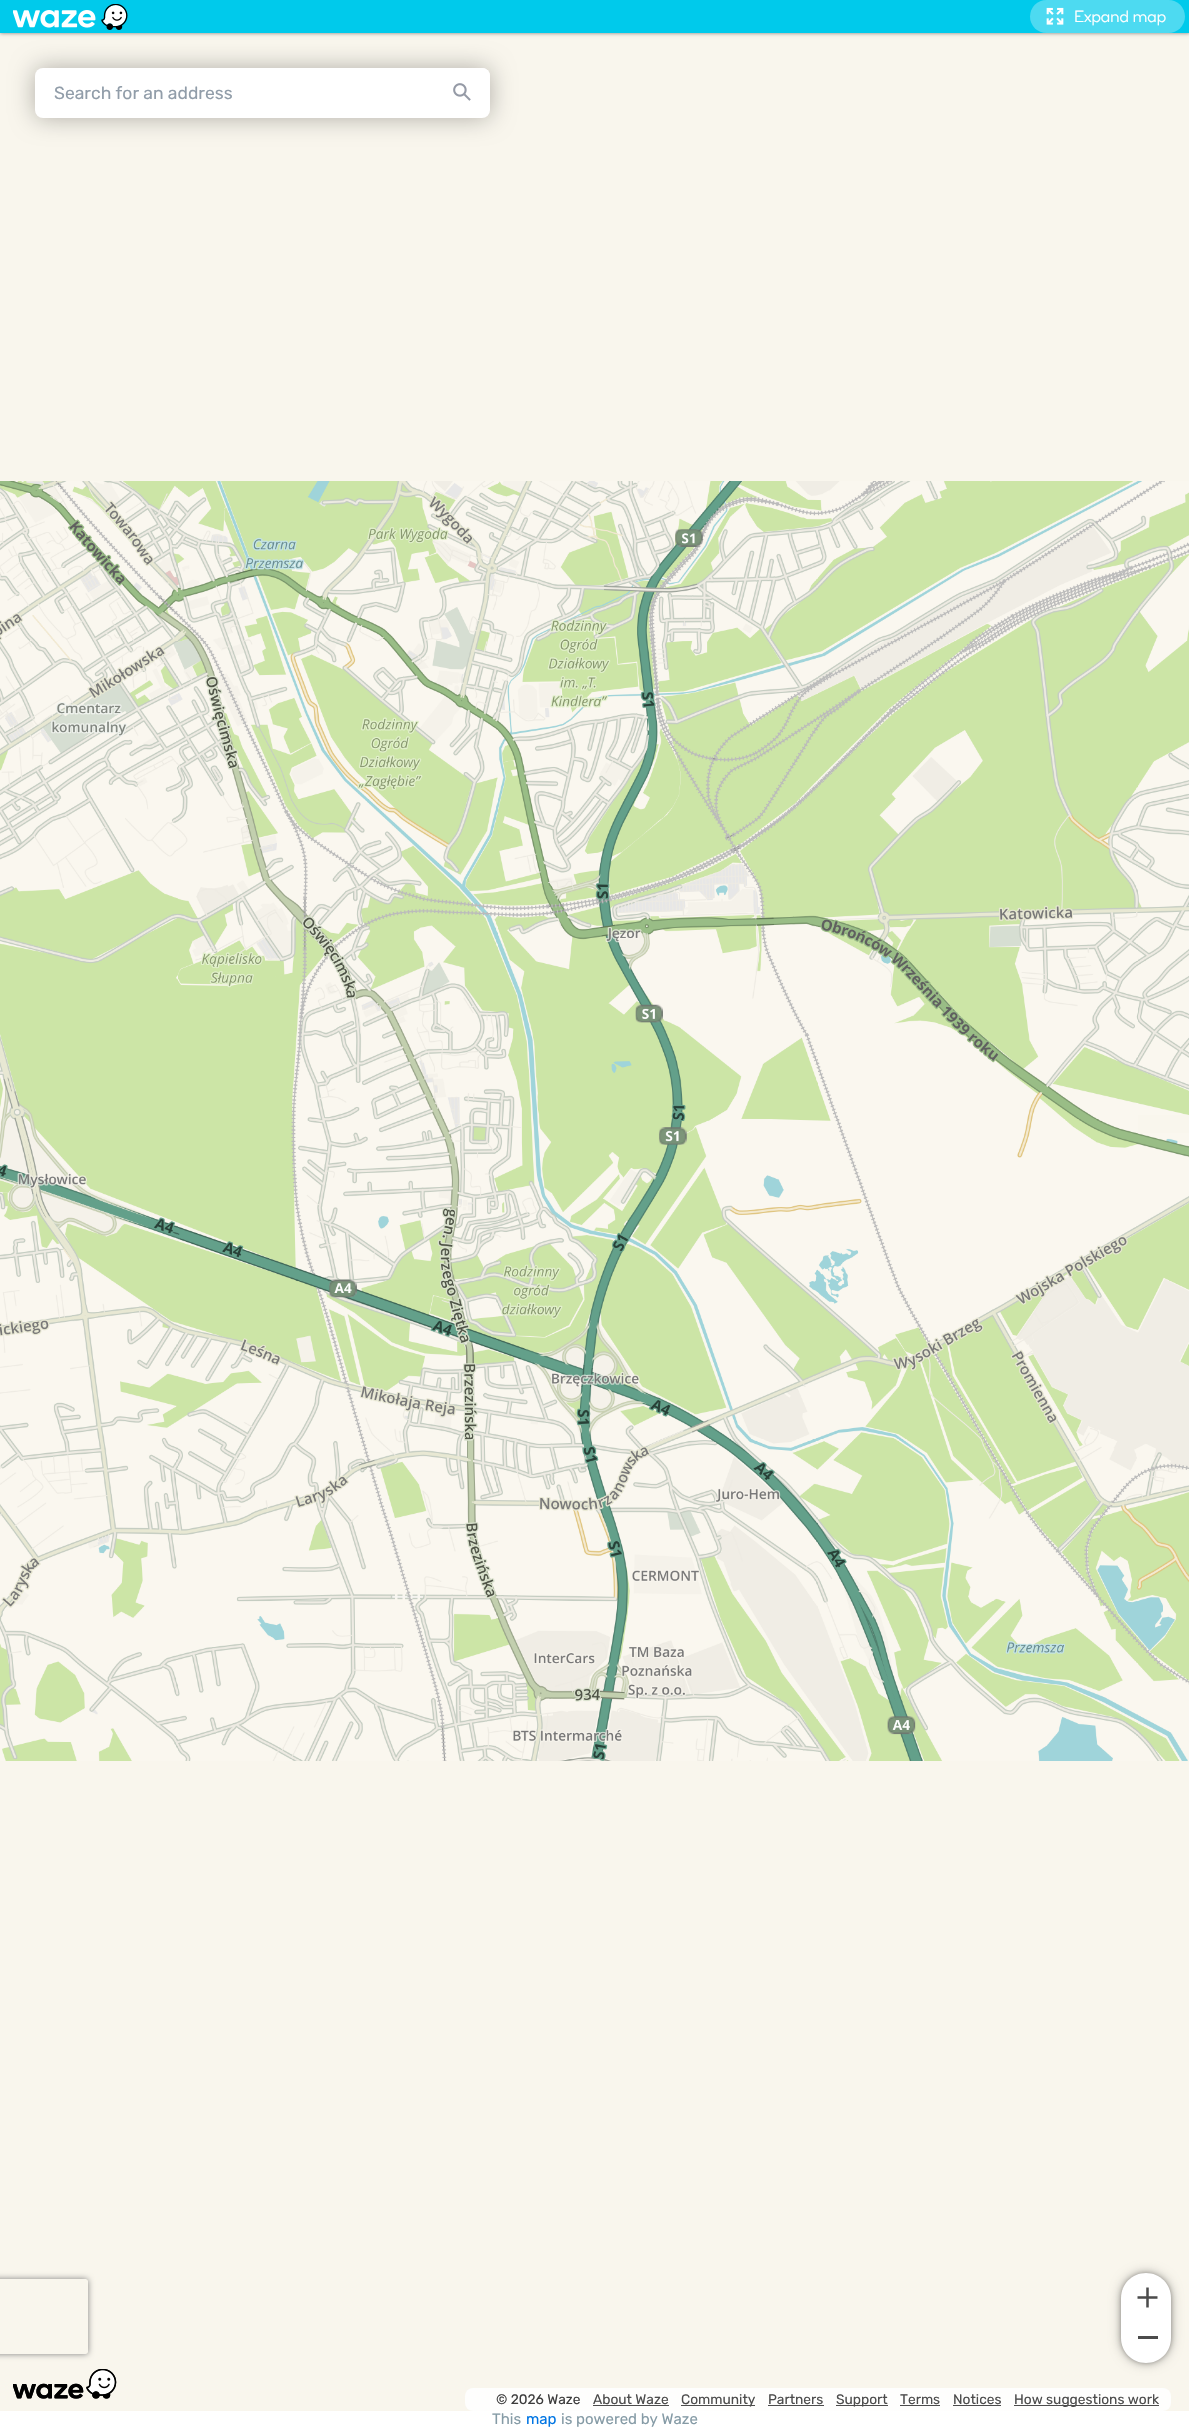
void draw(SkCanvas* canvas) {
	SkPaint paint;
	paint.setAntiAlias(true);
	auto svgPath = [&](const char* data, bool evenOdd = false) {
		SkPath result = *SkParsePath::FromSVGString(data);
		if (evenOdd) result.setFillType(SkPathFillType::kEvenOdd);
		return result;
	};
	canvas->clear(0xffffffff);
	paint.setColor(0xfff9f6ed);
	canvas->drawRect(SkRect::MakeXYWH(0, 33, 1189, 2378), paint);
	paint.setColor(0x80000000);
	paint.setMaskFilter(SkMaskFilter::MakeBlur(kNormal_SkBlurStyle, 2));
	canvas->drawRect(SkRect::MakeXYWH(0, 0, 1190, 33), paint);
	paint.setMaskFilter(nullptr);
	paint.setColor(0x4d000000);
	paint.setMaskFilter(SkMaskFilter::MakeBlur(kNormal_SkBlurStyle, 12.5));
	canvas->drawRoundRect(SkRect::MakeXYWH(35, 68, 455, 50), 8, 8, paint);
	paint.setMaskFilter(nullptr);
	paint.setColor(0xff00caeb);
	canvas->drawRect(SkRect::MakeXYWH(0, 0, 1189, 33), paint);
	canvas->drawImageRect(SkImages::DeferredFromEncodedData(SkData::MakeFromFileName("img1.png")), SkRect::MakeXYWH(13, 4, 115, 26), SkSamplingOptions());
	paint.setColor(0xff4ddaf1);
	canvas->drawRoundRect(SkRect::MakeXYWH(1030, 0, 155, 33), 16.5, 16.5, paint);
	canvas->drawImageRect(SkImages::DeferredFromEncodedData(SkData::MakeFromFileName("img2.png")), SkRect::MakeXYWH(1046, 7, 18, 18), SkSamplingOptions());
	SkFont f1(fontMgr->matchFamilyStyle("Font", SkFontStyle(300, SkFontStyle::kNormal_Width, SkFontStyle::kUpright_Slant)), 16.25);
	f1.setSubpixel(true);
	paint.setColor(0xffffffff);
	canvas->drawString("Expand map", 1074, 22, f1, paint);
	canvas->save();
	canvas->clipPath(svgPath("M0 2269H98V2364H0ZM-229.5 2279H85.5C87 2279 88 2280 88 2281.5V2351.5C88 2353 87 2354 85.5 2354H-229.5C-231 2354-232 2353-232 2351.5V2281.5C-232 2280-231 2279-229.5 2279Z", true), true);
	paint.setColor(0xff808080);
	paint.setMaskFilter(SkMaskFilter::MakeBlur(kNormal_SkBlurStyle, 3));
	canvas->drawRoundRect(SkRect::MakeXYWH(-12, 2279, 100, 75), 2.5, 2.5, paint);
	paint.setMaskFilter(nullptr);
	canvas->restore();
	paint.setColor(0xffffffff);
	canvas->drawRoundRect(SkRect::MakeXYWH(35, 68, 455, 50), 8, 8, paint);
	SkFont f2(fontMgr->matchFamilyStyle("Rubik", SkFontStyle::Normal()), 17.5);
	f2.setSubpixel(true);
	paint.setColor(0xff919da9);
	canvas->drawString("Search for an address", 54, 99, f2, paint);
	{
		const SkColor colors[] = {0x00ffffff, 0xffffffff, 0xffffffff};
		const float stops[] = {0, 0.25, 1};
		const SkPoint ends[] = {{428, 91}, {490, 91}};
		paint.setShader(SkGradientShader::MakeLinear(ends, colors, stops, 3, SkTileMode::kClamp));
		paint.setAlpha(255);
	}
	canvas->drawRoundRect(SkRect::MakeXYWH(428, 68, 62, 47), 8, 8, paint);
	canvas->drawImageRect(SkImages::DeferredFromEncodedData(SkData::MakeFromFileName("img3.png")), SkRect::MakeXYWH(453, 83, 18, 18), SkSamplingOptions());
	canvas->drawImageRect(SkImages::DeferredFromEncodedData(SkData::MakeFromFileName("img4.png")), SkRect::MakeXYWH(13, 2369, 104, 30), SkSamplingOptions());
	paint.setShader(nullptr);
	paint.setColor(0x4d000000);
	paint.setMaskFilter(SkMaskFilter::MakeBlur(kNormal_SkBlurStyle, 6));
	canvas->drawRoundRect(SkRect::MakeXYWH(1121, 2273, 50, 90), 25, 25, paint);
	paint.setMaskFilter(nullptr);
	paint.setMaskFilter(SkMaskFilter::MakeBlur(kNormal_SkBlurStyle, 2.5));
	canvas->drawRoundRect(SkRect::MakeXYWH(1121, 2273, 50, 90), 25, 25, paint);
	paint.setMaskFilter(nullptr);
	paint.setColor(0xffffffff);
	canvas->drawPath(svgPath("M1146 2273C1160 2273 1171 2284 1171 2298V2318H1121V2298C1121 2284 1132 2273 1146 2273Z"), paint);
	canvas->drawImageRect(SkImages::DeferredFromEncodedData(SkData::MakeFromFileName("img5.png")), SkRect::MakeXYWH(1137, 2287, 21, 21), SkSamplingOptions());
	canvas->drawPath(svgPath("M1121 2318H1171V2338C1171 2352 1160 2363 1146 2363C1132 2363 1121 2352 1121 2338Z"), paint);
	paint.setColor(0xff4c4c4c);
	canvas->drawRect(SkRect::MakeXYWH(1138, 2336, 20, 3), paint);
	paint.setColor(0xfffefefd);
	canvas->drawRoundRect(SkRect::MakeXYWH(465, 2388, 706, 23), 8, 8, paint);
	SkFont f3(fontMgr->matchFamilyStyle("Rubik", SkFontStyle::Normal()), 13.75);
	f3.setSubpixel(true);
	paint.setColor(0xff3d3d3d);
	canvas->drawString("© 2026 Waze", 496, 2404, f3, paint);
	paint.setColor(0xff4c4c4c);
	canvas->drawString("About Waze", 593, 2404, f3, paint);
	canvas->drawRect(SkRect::MakeXYWH(593, 2405, 76, 1), paint);
	canvas->drawRect(SkRect::MakeXYWH(681, 2405, 74, 1), paint);
	canvas->drawString("Community", 681, 2404, f3, paint);
	canvas->drawString("Partners", 768, 2404, f3, paint);
	canvas->drawRect(SkRect::MakeXYWH(768, 2405, 56, 1), paint);
	canvas->drawRect(SkRect::MakeXYWH(836, 2405, 52, 1), paint);
	canvas->drawString("Support", 836, 2404, f3, paint);
	canvas->drawString("Terms", 900, 2404, f3, paint);
	canvas->drawRect(SkRect::MakeXYWH(900, 2405, 40, 1), paint);
	canvas->drawString("Notices", 953, 2404, f3, paint);
	canvas->drawRect(SkRect::MakeXYWH(953, 2405, 48, 1), paint);
	canvas->drawRect(SkRect::MakeXYWH(1014, 2405, 145, 1), paint);
	canvas->drawString("How suggestions work", 1014, 2404, f3, paint);
	canvas->drawImageRect(SkImages::DeferredFromEncodedData(SkData::MakeFromFileName("img6.png")), SkRect::MakeXYWH(0, 481, 178, 320), SkSamplingOptions());
	canvas->drawImageRect(SkImages::DeferredFromEncodedData(SkData::MakeFromFileName("img7.png")), SkRect::MakeXYWH(178, 481, 320, 320), SkSamplingOptions());
	canvas->drawImageRect(SkImages::DeferredFromEncodedData(SkData::MakeFromFileName("img8.png")), SkRect::MakeXYWH(498, 481, 320, 320), SkSamplingOptions());
	canvas->drawImageRect(SkImages::DeferredFromEncodedData(SkData::MakeFromFileName("img9.png")), SkRect::MakeXYWH(818, 481, 320, 320), SkSamplingOptions());
	canvas->drawImageRect(SkImages::DeferredFromEncodedData(SkData::MakeFromFileName("img10.png")), SkRect::MakeXYWH(1138, 481, 51, 320), SkSamplingOptions());
	canvas->drawImageRect(SkImages::DeferredFromEncodedData(SkData::MakeFromFileName("img11.png")), SkRect::MakeXYWH(0, 801, 178, 320), SkSamplingOptions());
	canvas->drawImageRect(SkImages::DeferredFromEncodedData(SkData::MakeFromFileName("img12.png")), SkRect::MakeXYWH(178, 801, 320, 320), SkSamplingOptions());
	canvas->drawImageRect(SkImages::DeferredFromEncodedData(SkData::MakeFromFileName("img13.png")), SkRect::MakeXYWH(498, 801, 320, 320), SkSamplingOptions());
	canvas->drawImageRect(SkImages::DeferredFromEncodedData(SkData::MakeFromFileName("img14.png")), SkRect::MakeXYWH(818, 801, 320, 320), SkSamplingOptions());
	canvas->drawImageRect(SkImages::DeferredFromEncodedData(SkData::MakeFromFileName("img15.png")), SkRect::MakeXYWH(1138, 801, 51, 314), SkSamplingOptions());
	canvas->drawImageRect(SkImages::DeferredFromEncodedData(SkData::MakeFromFileName("img16.png")), SkRect::MakeXYWH(0, 1121, 178, 320), SkSamplingOptions());
	canvas->drawImageRect(SkImages::DeferredFromEncodedData(SkData::MakeFromFileName("img17.png")), SkRect::MakeXYWH(178, 1121, 320, 320), SkSamplingOptions());
	canvas->drawImageRect(SkImages::DeferredFromEncodedData(SkData::MakeFromFileName("img18.png")), SkRect::MakeXYWH(498, 1121, 320, 320), SkSamplingOptions());
	canvas->drawImageRect(SkImages::DeferredFromEncodedData(SkData::MakeFromFileName("img19.png")), SkRect::MakeXYWH(818, 1121, 320, 320), SkSamplingOptions());
	canvas->drawImageRect(SkImages::DeferredFromEncodedData(SkData::MakeFromFileName("img20.png")), SkRect::MakeXYWH(1138, 1133, 51, 308), SkSamplingOptions());
	canvas->drawImageRect(SkImages::DeferredFromEncodedData(SkData::MakeFromFileName("img21.png")), SkRect::MakeXYWH(0, 1441, 178, 320), SkSamplingOptions());
	canvas->drawImageRect(SkImages::DeferredFromEncodedData(SkData::MakeFromFileName("img22.png")), SkRect::MakeXYWH(178, 1441, 320, 320), SkSamplingOptions());
	canvas->drawImageRect(SkImages::DeferredFromEncodedData(SkData::MakeFromFileName("img23.png")), SkRect::MakeXYWH(498, 1441, 320, 320), SkSamplingOptions());
	canvas->drawImageRect(SkImages::DeferredFromEncodedData(SkData::MakeFromFileName("img24.png")), SkRect::MakeXYWH(818, 1441, 320, 320), SkSamplingOptions());
	canvas->drawImageRect(SkImages::DeferredFromEncodedData(SkData::MakeFromFileName("img25.png")), SkRect::MakeXYWH(1138, 1441, 51, 320), SkSamplingOptions());
	SkFont f4(fontMgr->matchFamilyStyle("Rubik", SkFontStyle::Normal()), 15);
	f4.setSubpixel(true);
	paint.setColor(0xff859ba6);
	canvas->drawString("This", 492, 2424, f4, paint);
	paint.setColor(0xff0075e3);
	canvas->drawString("map", 526, 2424, f4, paint);
	paint.setColor(0xff859ba6);
	canvas->drawString("is powered by Waze", 561, 2424, f4, paint);
}
